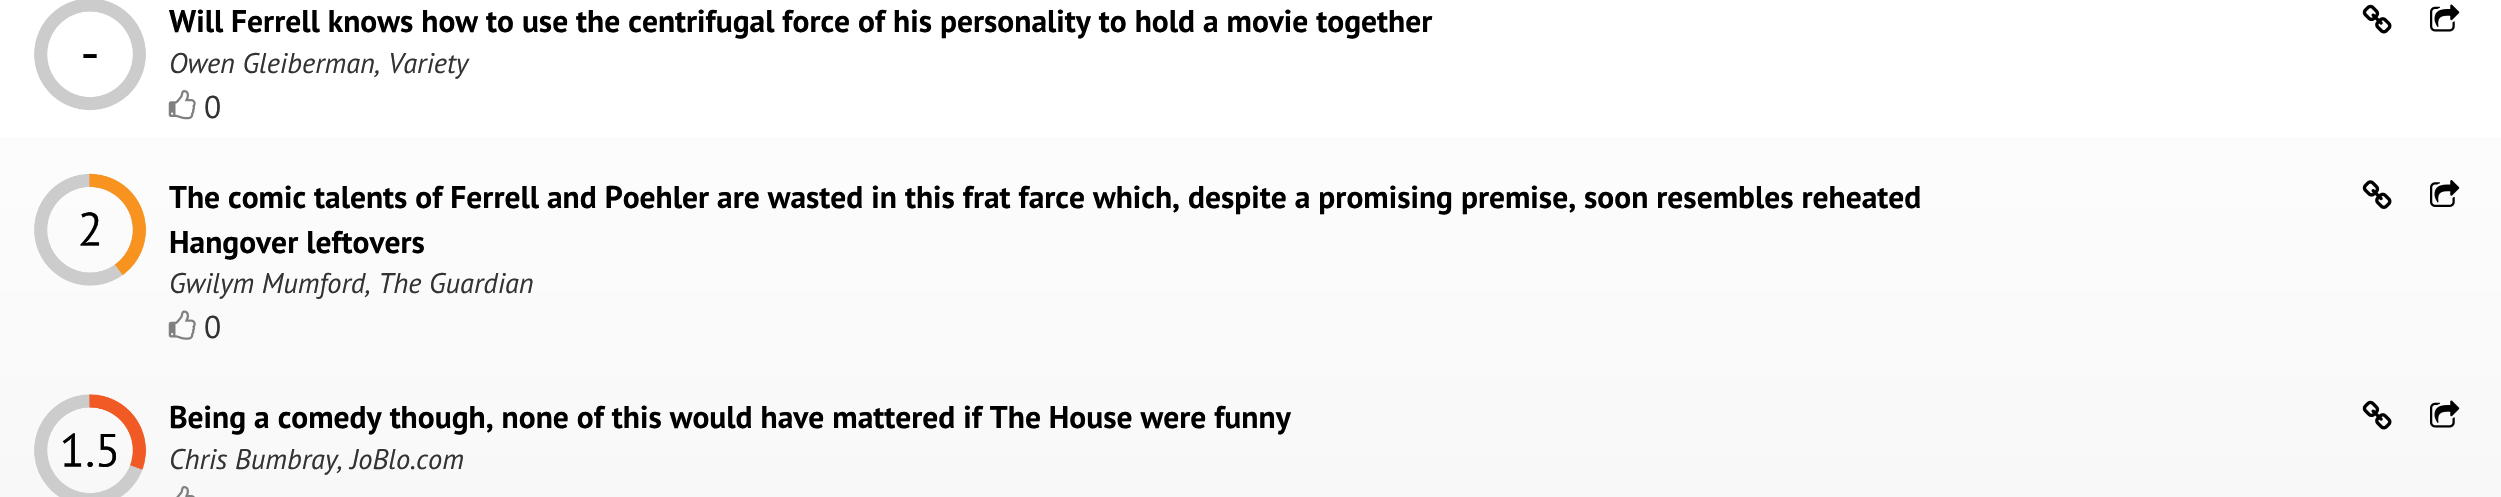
void draw(SkCanvas* canvas) {
	SkPaint paint;
	paint.setAntiAlias(true);
	canvas->clear(0xffffffff);
	{
		const SkColor colors[] = {0xffffffff, 0xfffcfcfc, 0xfffafafa, 0xfff8f8f8};
		const float stops[] = {0, 0.33, 0.67, 1};
		const SkPoint ends[] = {{1251, 0}, {1251, 497}};
		paint.setShader(SkGradientShader::MakeLinear(ends, colors, stops, 4, SkTileMode::kClamp));
		paint.setAlpha(255);
	}
	canvas->drawRect(SkRect::MakeXYWH(0, 137, 2501, 360), paint);
	canvas->drawImageRect(SkImages::DeferredFromEncodedData(SkData::MakeFromFileName("img1.png")), SkRect::MakeXYWH(34, 0, 112, 111), SkSamplingOptions());
	SkFont f1(fontMgr->matchFamilyStyle("PT Sans", SkFontStyle::Bold()), 31.5);
	f1.setSubpixel(true);
	paint.setShader(nullptr);
	paint.setColor(0xff000000);
	canvas->drawString("Will Ferrell knows how to use the centrifugal force of his personality to hold a movie together", 169, 32, f1, paint);
	SkFont f2(fontMgr->matchFamilyStyle("PT Sans", SkFontStyle::Italic()), 28.4);
	f2.setSubpixel(true);
	paint.setColor(0xff333333);
	canvas->drawString("Owen Gleiberman, Variety", 169, 73, f2, paint);
	canvas->drawImageRect(SkImages::DeferredFromEncodedData(SkData::MakeFromFileName("img2.png")), SkRect::MakeXYWH(168, 90, 28, 30), SkSamplingOptions());
	SkFont f3(fontMgr->matchFamilyStyle("PT Sans", SkFontStyle::Normal()), 31.5);
	f3.setSubpixel(true);
	canvas->drawString("0", 204, 118, f3, paint);
	canvas->drawImageRect(SkImages::DeferredFromEncodedData(SkData::MakeFromFileName("img3.png")), SkRect::MakeXYWH(2362, 4, 30, 30), SkSamplingOptions());
	canvas->drawImageRect(SkImages::DeferredFromEncodedData(SkData::MakeFromFileName("img4.png")), SkRect::MakeXYWH(2430, 4, 30, 28), SkSamplingOptions());
	canvas->drawImageRect(SkImages::DeferredFromEncodedData(SkData::MakeFromFileName("img5.png")), SkRect::MakeXYWH(34, 173, 113, 113), SkSamplingOptions());
	paint.setColor(0xff000000);
	canvas->drawString("The comic talents of Ferrell and Poehler are wasted in this frat farce which, despite a promising premise, soon resembles reheated", 169, 208, f1, paint);
	canvas->drawString("Hangover leftovers", 169, 253, f1, paint);
	paint.setColor(0xff333333);
	canvas->drawString("Gwilym Mumford, The Guardian", 169, 293, f2, paint);
	canvas->drawImageRect(SkImages::DeferredFromEncodedData(SkData::MakeFromFileName("img6.png")), SkRect::MakeXYWH(168, 310, 28, 30), SkSamplingOptions());
	canvas->drawString("0", 204, 338, f3, paint);
	canvas->drawImageRect(SkImages::DeferredFromEncodedData(SkData::MakeFromFileName("img7.png")), SkRect::MakeXYWH(2362, 180, 30, 29), SkSamplingOptions());
	canvas->drawImageRect(SkImages::DeferredFromEncodedData(SkData::MakeFromFileName("img8.png")), SkRect::MakeXYWH(2430, 180, 30, 27), SkSamplingOptions());
	canvas->drawImageRect(SkImages::DeferredFromEncodedData(SkData::MakeFromFileName("img9.png")), SkRect::MakeXYWH(34, 394, 113, 103), SkSamplingOptions());
	paint.setColor(0xff000000);
	canvas->drawString("Being a comedy though, none of this would have mattered if The House were funny", 169, 428, f1, paint);
	paint.setColor(0xff333333);
	canvas->drawString("Chris Bumbray, JoBlo.com", 169, 469, f2, paint);
	canvas->drawImageRect(SkImages::DeferredFromEncodedData(SkData::MakeFromFileName("img10.png")), SkRect::MakeXYWH(176, 486, 19, 11), SkSamplingOptions());
	canvas->drawImageRect(SkImages::DeferredFromEncodedData(SkData::MakeFromFileName("img11.png")), SkRect::MakeXYWH(2362, 400, 30, 30), SkSamplingOptions());
	canvas->drawImageRect(SkImages::DeferredFromEncodedData(SkData::MakeFromFileName("img12.png")), SkRect::MakeXYWH(2430, 400, 30, 28), SkSamplingOptions());
}
